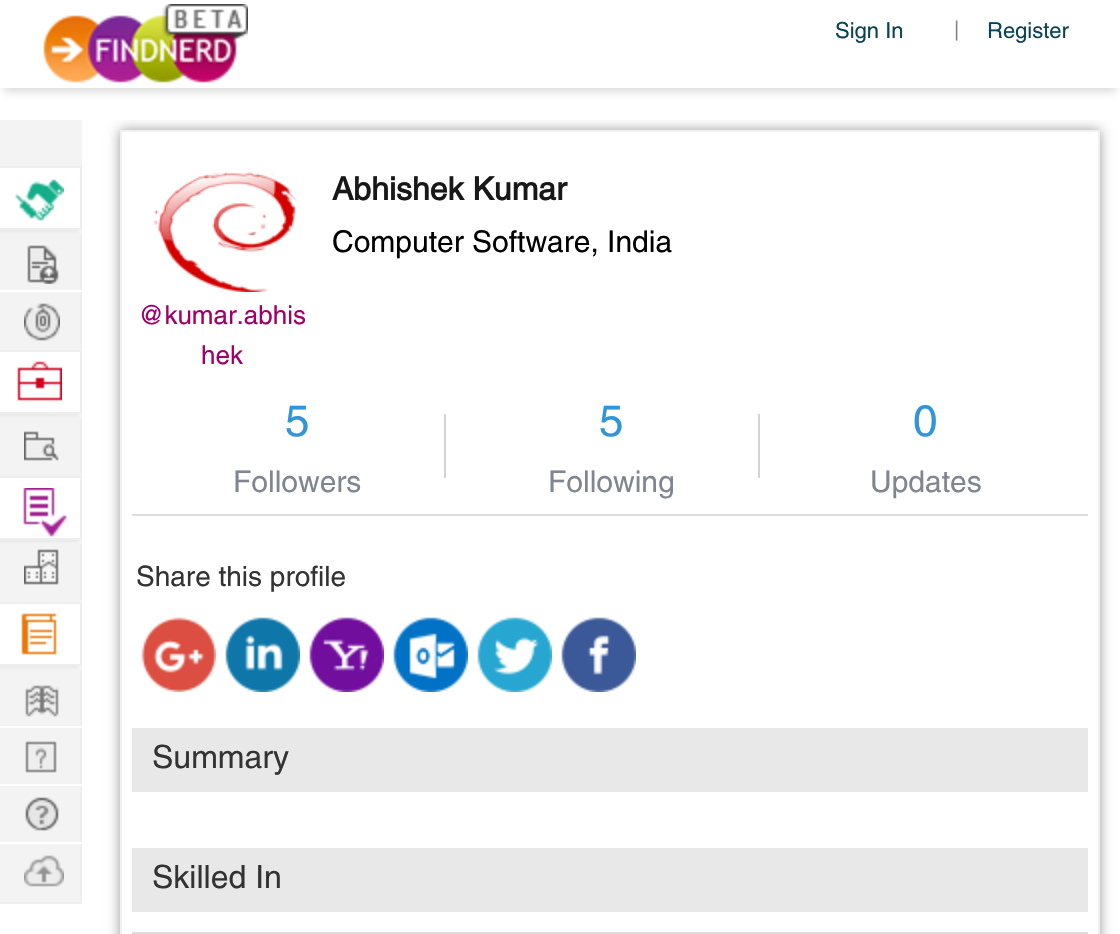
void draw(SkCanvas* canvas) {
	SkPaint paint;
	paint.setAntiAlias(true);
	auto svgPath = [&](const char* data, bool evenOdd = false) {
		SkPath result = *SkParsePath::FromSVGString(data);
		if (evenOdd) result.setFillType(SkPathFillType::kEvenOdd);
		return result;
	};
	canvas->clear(0xffffffff);
	canvas->save();
	canvas->clipRect(SkRect::MakeXYWH(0, 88, 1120, 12));
	paint.setColor(0xffdddddd);
	paint.setMaskFilter(SkMaskFilter::MakeBlur(kNormal_SkBlurStyle, 4));
	canvas->drawRect(SkRect::MakeXYWH(4, 12, 1112, 80), paint);
	paint.setMaskFilter(nullptr);
	canvas->restore();
	canvas->drawImageRect(SkImages::DeferredFromEncodedData(SkData::MakeFromFileName("img1.png")), SkRect::MakeXYWH(43, 4, 205, 79), SkSamplingOptions());
	SkFont f1(fontMgr->matchFamilyStyle("Helvetica", SkFontStyle::Normal()), 22);
	f1.setSubpixel(true);
	paint.setColor(0xff074456);
	canvas->drawString("Sign In", 835, 38, f1, paint);
	SkFont f2(fontMgr->matchFamilyStyle("Helvetica", SkFontStyle::Normal()), 20);
	f2.setSubpixel(true);
	paint.setColor(0xff828282);
	canvas->drawString("|", 954, 36, f2, paint);
	paint.setColor(0xff074456);
	canvas->drawString("Register", 987, 38, f1, paint);
	paint.setColor(0xfff3f3f3);
	canvas->drawRect(SkRect::MakeXYWH(0, 120, 82, 780), paint);
	paint.setColor(0xffeeeeee);
	canvas->drawRect(SkRect::MakeXYWH(0, 902, 82, 2), paint);
	paint.setColor(0x80dddddd);
	paint.setMaskFilter(SkMaskFilter::MakeBlur(kNormal_SkBlurStyle, 1));
	canvas->drawRect(SkRect::MakeXYWH(-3, 168, 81, 64), paint);
	paint.setMaskFilter(nullptr);
	paint.setColor(0xffffffff);
	canvas->drawRect(SkRect::MakeXYWH(0, 168, 80, 60), paint);
	paint.setColor(0xffeeeeee);
	canvas->drawRect(SkRect::MakeXYWH(0, 166, 82, 2), paint);
	canvas->drawRect(SkRect::MakeXYWH(80, 166, 2, 64), paint);
	canvas->drawRect(SkRect::MakeXYWH(0, 228, 82, 2), paint);
	canvas->drawImageRect(SkImages::DeferredFromEncodedData(SkData::MakeFromFileName("img2.png")), SkRect::MakeXYWH(15, 179, 49, 42), SkSamplingOptions());
	canvas->drawRect(SkRect::MakeXYWH(80, 234, 2, 116), paint);
	paint.setColor(0xffffffff);
	canvas->drawRect(SkRect::MakeXYWH(0, 290, 82, 2), paint);
	canvas->drawImageRect(SkImages::DeferredFromEncodedData(SkData::MakeFromFileName("img3.png")), SkRect::MakeXYWH(27, 245, 32, 39), SkSamplingOptions());
	paint.setColor(0xfff3f3f3);
	canvas->drawRect(SkRect::MakeXYWH(80, 348, 2, 2), paint);
	canvas->drawImageRect(SkImages::DeferredFromEncodedData(SkData::MakeFromFileName("img4.png")), SkRect::MakeXYWH(24, 303, 36, 38), SkSamplingOptions());
	paint.setColor(0x80dddddd);
	paint.setMaskFilter(SkMaskFilter::MakeBlur(kNormal_SkBlurStyle, 1));
	canvas->drawRect(SkRect::MakeXYWH(-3, 352, 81, 64), paint);
	paint.setMaskFilter(nullptr);
	paint.setColor(0xffffffff);
	canvas->drawRect(SkRect::MakeXYWH(0, 352, 80, 60), paint);
	paint.setColor(0xffeeeeee);
	canvas->drawRect(SkRect::MakeXYWH(0, 350, 82, 2), paint);
	canvas->drawRect(SkRect::MakeXYWH(80, 350, 2, 64), paint);
	canvas->drawRect(SkRect::MakeXYWH(0, 412, 82, 2), paint);
	canvas->drawImageRect(SkImages::DeferredFromEncodedData(SkData::MakeFromFileName("img5.png")), SkRect::MakeXYWH(17, 361, 45, 40), SkSamplingOptions());
	canvas->drawRect(SkRect::MakeXYWH(80, 418, 2, 58), paint);
	paint.setColor(0xfff3f3f3);
	canvas->drawRect(SkRect::MakeXYWH(80, 474, 2, 2), paint);
	canvas->drawImageRect(SkImages::DeferredFromEncodedData(SkData::MakeFromFileName("img6.png")), SkRect::MakeXYWH(24, 431, 35, 30), SkSamplingOptions());
	paint.setColor(0x80dddddd);
	paint.setMaskFilter(SkMaskFilter::MakeBlur(kNormal_SkBlurStyle, 1));
	canvas->drawRect(SkRect::MakeXYWH(-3, 478, 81, 64), paint);
	paint.setMaskFilter(nullptr);
	paint.setColor(0xffffffff);
	canvas->drawRect(SkRect::MakeXYWH(0, 478, 80, 60), paint);
	paint.setColor(0xffeeeeee);
	canvas->drawRect(SkRect::MakeXYWH(0, 476, 82, 2), paint);
	canvas->drawRect(SkRect::MakeXYWH(80, 476, 2, 64), paint);
	canvas->drawRect(SkRect::MakeXYWH(0, 538, 82, 2), paint);
	canvas->drawImageRect(SkImages::DeferredFromEncodedData(SkData::MakeFromFileName("img7.png")), SkRect::MakeXYWH(23, 488, 44, 49), SkSamplingOptions());
	canvas->drawRect(SkRect::MakeXYWH(80, 544, 2, 58), paint);
	paint.setColor(0xfff3f3f3);
	canvas->drawRect(SkRect::MakeXYWH(80, 600, 2, 2), paint);
	canvas->drawImageRect(SkImages::DeferredFromEncodedData(SkData::MakeFromFileName("img8.png")), SkRect::MakeXYWH(24, 549, 35, 36), SkSamplingOptions());
	paint.setColor(0x80dddddd);
	paint.setMaskFilter(SkMaskFilter::MakeBlur(kNormal_SkBlurStyle, 1));
	canvas->drawRect(SkRect::MakeXYWH(-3, 604, 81, 64), paint);
	paint.setMaskFilter(nullptr);
	paint.setColor(0xffffffff);
	canvas->drawRect(SkRect::MakeXYWH(0, 604, 80, 60), paint);
	paint.setColor(0xffeeeeee);
	canvas->drawRect(SkRect::MakeXYWH(0, 602, 82, 2), paint);
	canvas->drawRect(SkRect::MakeXYWH(80, 602, 2, 64), paint);
	canvas->drawRect(SkRect::MakeXYWH(0, 664, 82, 2), paint);
	canvas->drawImageRect(SkImages::DeferredFromEncodedData(SkData::MakeFromFileName("img9.png")), SkRect::MakeXYWH(21, 612, 36, 43), SkSamplingOptions());
	canvas->drawRect(SkRect::MakeXYWH(80, 670, 2, 232), paint);
	paint.setColor(0xffffffff);
	canvas->drawRect(SkRect::MakeXYWH(0, 726, 82, 2), paint);
	canvas->drawImageRect(SkImages::DeferredFromEncodedData(SkData::MakeFromFileName("img10.png")), SkRect::MakeXYWH(25, 685, 34, 32), SkSamplingOptions());
	canvas->drawRect(SkRect::MakeXYWH(0, 784, 82, 2), paint);
	canvas->drawImageRect(SkImages::DeferredFromEncodedData(SkData::MakeFromFileName("img11.png")), SkRect::MakeXYWH(25, 741, 32, 32), SkSamplingOptions());
	canvas->drawRect(SkRect::MakeXYWH(0, 842, 82, 2), paint);
	canvas->drawImageRect(SkImages::DeferredFromEncodedData(SkData::MakeFromFileName("img12.png")), SkRect::MakeXYWH(25, 797, 34, 34), SkSamplingOptions());
	paint.setColor(0xfff3f3f3);
	canvas->drawRect(SkRect::MakeXYWH(0, 900, 82, 2), paint);
	canvas->drawImageRect(SkImages::DeferredFromEncodedData(SkData::MakeFromFileName("img13.png")), SkRect::MakeXYWH(24, 855, 40, 32), SkSamplingOptions());
	canvas->save();
	canvas->clipRect(SkRect::MakeXYWH(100, 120, 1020, 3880));
	canvas->clipPath(svgPath("M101 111H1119V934H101ZM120 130H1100V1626H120Z", true), true);
	paint.setColor(0xff999999);
	paint.setMaskFilter(SkMaskFilter::MakeBlur(kNormal_SkBlurStyle, 6));
	canvas->drawRect(SkRect::MakeXYWH(120, 130, 980, 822), paint);
	paint.setMaskFilter(nullptr);
	canvas->restore();
	paint.setStroke(true);
	paint.setStrokeWidth(2);
	paint.setColor(0xfff1f1f1);
	canvas->drawRect(SkRect::MakeXYWH(121, 131, 978, 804), paint);
	SkFont f3(fontMgr->matchFamilyStyle("Helvetica", SkFontStyle::Bold()), 32);
	f3.setSubpixel(true);
	paint.setStroke(false);
	paint.setColor(0xff181818);
	canvas->drawString("Abhishek Kumar", 332, 200, f3, paint);
	SkFont f4(fontMgr->matchFamilyStyle("Helvetica", SkFontStyle::Normal()), 30);
	f4.setSubpixel(true);
	paint.setColor(0xff010101);
	canvas->drawString("Computer Software, India", 332, 252, f4, paint);
	canvas->drawImageRect(SkImages::DeferredFromEncodedData(SkData::MakeFromFileName("img14.png")), SkRect::MakeXYWH(153, 172, 144, 120), SkSamplingOptions());
	SkFont f5(fontMgr->matchFamilyStyle("Helvetica", SkFontStyle::Normal()), 26);
	f5.setSubpixel(true);
	paint.setColor(0xffa1006b);
	canvas->drawString("@kumar.abhis", 138, 324, f5, paint);
	canvas->drawString("hek", 201, 364, f5, paint);
	paint.setColor(0xffdddddd);
	canvas->drawRect(SkRect::MakeXYWH(132, 514, 956, 2), paint);
	SkFont f6(fontMgr->matchFamilyStyle("Helvetica", SkFontStyle::Normal()), 44);
	f6.setSubpixel(true);
	paint.setColor(0xff3095d9);
	canvas->drawString("5", 285, 436, f6, paint);
	paint.setColor(0xff7f868f);
	canvas->drawString("Followers", 233, 492, f4, paint);
	paint.setColor(0xffd4d4d4);
	canvas->drawRect(SkRect::MakeXYWH(444, 414, 2, 64), paint);
	paint.setColor(0xff3095d9);
	canvas->drawString("5", 599, 436, f6, paint);
	paint.setColor(0xff7f868f);
	canvas->drawString("Following", 548, 492, f4, paint);
	paint.setColor(0xffd4d4d4);
	canvas->drawRect(SkRect::MakeXYWH(758, 414, 2, 64), paint);
	paint.setColor(0xff3095d9);
	canvas->drawString("0", 913, 436, f6, paint);
	paint.setColor(0xff7f868f);
	canvas->drawString("Updates", 870, 492, f4, paint);
	SkFont f7(fontMgr->matchFamilyStyle("Helvetica", SkFontStyle::Normal()), 28);
	f7.setSubpixel(true);
	paint.setColor(0xff333333);
	canvas->drawString("Share this profile", 136, 586, f7, paint);
	canvas->drawImageRect(SkImages::DeferredFromEncodedData(SkData::MakeFromFileName("img15.png")), SkRect::MakeXYWH(141, 617, 75, 75), SkSamplingOptions());
	canvas->drawImageRect(SkImages::DeferredFromEncodedData(SkData::MakeFromFileName("img16.png")), SkRect::MakeXYWH(225, 617, 75, 75), SkSamplingOptions());
	canvas->drawImageRect(SkImages::DeferredFromEncodedData(SkData::MakeFromFileName("img17.png")), SkRect::MakeXYWH(309, 617, 75, 75), SkSamplingOptions());
	canvas->drawImageRect(SkImages::DeferredFromEncodedData(SkData::MakeFromFileName("img18.png")), SkRect::MakeXYWH(393, 617, 75, 75), SkSamplingOptions());
	canvas->drawImageRect(SkImages::DeferredFromEncodedData(SkData::MakeFromFileName("img19.png")), SkRect::MakeXYWH(477, 617, 75, 75), SkSamplingOptions());
	canvas->drawImageRect(SkImages::DeferredFromEncodedData(SkData::MakeFromFileName("img20.png")), SkRect::MakeXYWH(561, 617, 75, 75), SkSamplingOptions());
	paint.setColor(0xffe8e8e8);
	canvas->drawRect(SkRect::MakeXYWH(132, 728, 956, 64), paint);
	SkFont f8(fontMgr->matchFamilyStyle("Helvetica", SkFontStyle::Normal()), 32);
	f8.setSubpixel(true);
	paint.setColor(0xff333333);
	canvas->drawString("Summary", 152, 768, f8, paint);
	paint.setColor(0xffe8e8e8);
	canvas->drawRect(SkRect::MakeXYWH(132, 848, 956, 64), paint);
	paint.setColor(0xff333333);
	canvas->drawString("Skilled In", 152, 888, f8, paint);
	paint.setStroke(true);
	paint.setColor(0xffdddddd);
	canvas->drawRect(SkRect::MakeXYWH(133, 933, 954, 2), paint);
}
